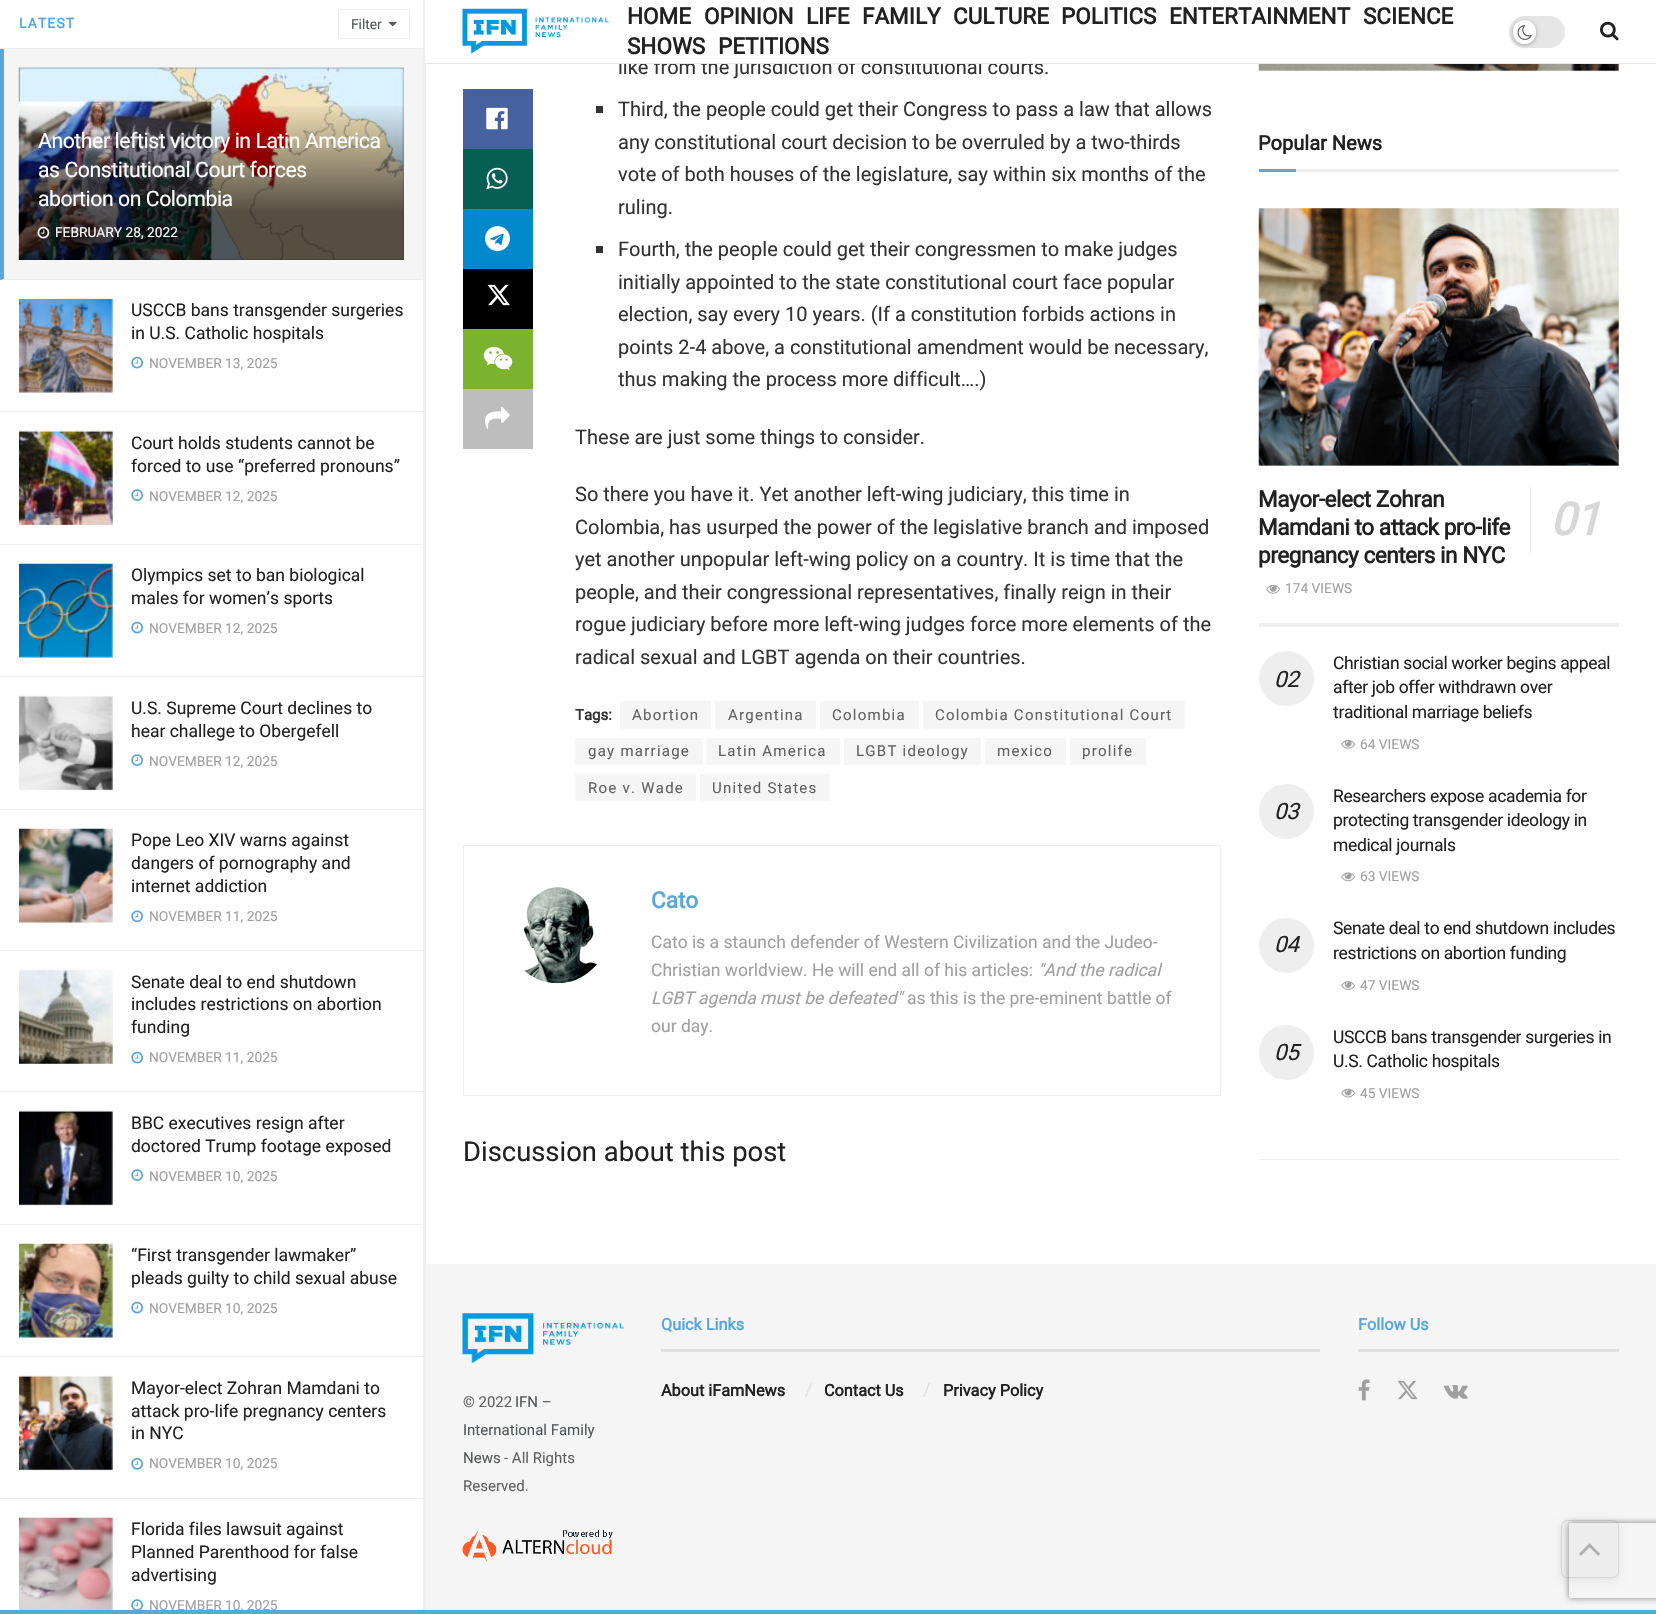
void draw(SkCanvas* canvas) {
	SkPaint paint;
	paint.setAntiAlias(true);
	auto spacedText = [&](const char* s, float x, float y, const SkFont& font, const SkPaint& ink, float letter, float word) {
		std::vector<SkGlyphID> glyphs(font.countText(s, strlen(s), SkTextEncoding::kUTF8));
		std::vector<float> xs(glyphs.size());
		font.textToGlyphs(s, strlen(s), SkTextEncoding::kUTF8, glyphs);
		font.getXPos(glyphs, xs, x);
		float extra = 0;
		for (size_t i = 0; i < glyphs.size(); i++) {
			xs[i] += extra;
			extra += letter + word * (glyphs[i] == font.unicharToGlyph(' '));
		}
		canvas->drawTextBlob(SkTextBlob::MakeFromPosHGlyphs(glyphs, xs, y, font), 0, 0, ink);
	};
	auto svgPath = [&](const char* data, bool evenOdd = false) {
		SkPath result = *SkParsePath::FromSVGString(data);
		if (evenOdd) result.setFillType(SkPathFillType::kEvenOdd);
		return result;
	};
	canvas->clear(0xffffffff);
	paint.setColor(0xffeeeeee);
	canvas->drawRect(SkRect::MakeXYWH(423, 0, 3, 1614), paint);
	canvas->drawRect(SkRect::MakeXYWH(0, 48, 423, 1), paint);
	SkFont f1(fontMgr->matchFamilyStyle("Roboto", SkFontStyle::Bold()), 13.75);
	f1.setSubpixel(true);
	paint.setColor(0xff59a7da);
	spacedText("LATEST", 19, 28, f1, paint, 1.25, 0);
	paint.setStroke(true);
	paint.setStrokeWidth(1);
	paint.setColor(0xffeeeeee);
	canvas->drawRect(SkRect::MakeXYWH(338.5, 9.5, 71, 29), paint);
	SkFont f2(fontMgr->matchFamilyStyle("Roboto", SkFontStyle::Normal()), 13.75);
	f2.setSubpixel(true);
	paint.setStroke(false);
	paint.setColor(0xff53585c);
	canvas->drawString("Filter", 351, 29, f2, paint);
	canvas->drawImageRect(SkImages::DeferredFromEncodedData(SkData::MakeFromFileName("img1.png")), SkRect::MakeXYWH(388, 21, 9, 6), SkSamplingOptions());
	paint.setColor(0xfff5f5f5);
	canvas->drawRect(SkRect::MakeXYWH(0, 49, 423, 231), paint);
	paint.setColor(0xffeeeeee);
	canvas->drawPath(svgPath("M422 280H0L4 279H422Z"), paint);
	paint.setColor(0xff59a7da);
	canvas->drawPath(svgPath("M0 280V49H4V279Z"), paint);
	canvas->drawImageRect(SkImages::DeferredFromEncodedData(SkData::MakeFromFileName("img2.png")), SkRect::MakeXYWH(18, 67, 386, 193), SkSamplingOptions());
	{
		const SkColor colors[] = {0x00000000, 0xa6000000};
		const float stops[] = {0, 0.7};
		const SkPoint ends[] = {{211, 102}, {211, 260}};
		paint.setShader(SkGradientShader::MakeLinear(ends, colors, stops, 2, SkTileMode::kClamp));
		paint.setAlpha(255);
	}
	canvas->drawRect(SkRect::MakeXYWH(19, 106, 385, 154), paint);
	SkFont f3(fontMgr->matchFamilyStyle("Roboto", SkFontStyle::Normal()), 21.25);
	f3.setSubpixel(true);
	paint.setShader(nullptr);
	paint.setColor(0xffffffff);
	spacedText("Another leftist victory in Latin America", 38, 148, f3, paint, -0.45, 0);
	spacedText("as Constitutional Court forces", 38, 177, f3, paint, -0.45, 0);
	spacedText("abortion on Colombia", 38, 206, f3, paint, -0.45, 0);
	canvas->drawImageRect(SkImages::DeferredFromEncodedData(SkData::MakeFromFileName("img3.png")), SkRect::MakeXYWH(37, 226, 13, 13), SkSamplingOptions());
	canvas->drawString("FEBRUARY 28, 2022", 55, 237, f2, paint);
	paint.setColor(0xffeeeeee);
	canvas->drawRect(SkRect::MakeXYWH(0, 411, 423, 1), paint);
	paint.setColor(0xfff7f7f7);
	canvas->drawRect(SkRect::MakeXYWH(19, 299, 94, 94), paint);
	canvas->drawImageRect(SkImages::DeferredFromEncodedData(SkData::MakeFromFileName("img4.png")), SkRect::MakeXYWH(19, 299, 94, 94), SkSamplingOptions());
	SkFont f4(fontMgr->matchFamilyStyle("Roboto", SkFontStyle::Normal()), 17.5);
	f4.setSubpixel(true);
	paint.setColor(0xff212121);
	canvas->drawString("USCCB bans transgender surgeries", 131, 316, f4, paint);
	canvas->drawString("in U.S. Catholic hospitals", 131, 339, f4, paint);
	canvas->drawImageRect(SkImages::DeferredFromEncodedData(SkData::MakeFromFileName("img5.png")), SkRect::MakeXYWH(131, 356, 12, 13), SkSamplingOptions());
	paint.setColor(0xffa0a0a0);
	canvas->drawString("NOVEMBER 13, 2025", 149, 368, f2, paint);
	paint.setColor(0xffeeeeee);
	canvas->drawRect(SkRect::MakeXYWH(0, 544, 423, 1), paint);
	paint.setColor(0xfff7f7f7);
	canvas->drawRect(SkRect::MakeXYWH(19, 431, 94, 94), paint);
	canvas->drawImageRect(SkImages::DeferredFromEncodedData(SkData::MakeFromFileName("img6.png")), SkRect::MakeXYWH(19, 430, 94, 96), SkSamplingOptions());
	paint.setColor(0xff212121);
	canvas->drawString("Court holds students cannot be", 131, 449, f4, paint);
	canvas->drawString("forced to use “preferred pronouns”", 131, 472, f4, paint);
	canvas->drawImageRect(SkImages::DeferredFromEncodedData(SkData::MakeFromFileName("img7.png")), SkRect::MakeXYWH(131, 489, 12, 12), SkSamplingOptions());
	paint.setColor(0xffa0a0a0);
	canvas->drawString("NOVEMBER 12, 2025", 149, 501, f2, paint);
	paint.setColor(0xffeeeeee);
	canvas->drawRect(SkRect::MakeXYWH(0, 676, 423, 1), paint);
	paint.setColor(0xfff7f7f7);
	canvas->drawRect(SkRect::MakeXYWH(19, 564, 94, 94), paint);
	canvas->drawImageRect(SkImages::DeferredFromEncodedData(SkData::MakeFromFileName("img8.png")), SkRect::MakeXYWH(19, 563, 94, 95), SkSamplingOptions());
	paint.setColor(0xff212121);
	canvas->drawString("Olympics set to ban biological", 131, 581, f4, paint);
	canvas->drawString("males for women’s sports", 131, 604, f4, paint);
	canvas->drawImageRect(SkImages::DeferredFromEncodedData(SkData::MakeFromFileName("img5.png")), SkRect::MakeXYWH(131, 621, 12, 13), SkSamplingOptions());
	paint.setColor(0xffa0a0a0);
	canvas->drawString("NOVEMBER 12, 2025", 149, 633, f2, paint);
	paint.setColor(0xffeeeeee);
	canvas->drawRect(SkRect::MakeXYWH(0, 809, 423, 1), paint);
	paint.setColor(0xfff7f7f7);
	canvas->drawRect(SkRect::MakeXYWH(19, 696, 94, 94), paint);
	canvas->drawImageRect(SkImages::DeferredFromEncodedData(SkData::MakeFromFileName("img9.png")), SkRect::MakeXYWH(19, 695, 94, 96), SkSamplingOptions());
	paint.setColor(0xff212121);
	canvas->drawString("U.S. Supreme Court declines to", 131, 714, f4, paint);
	canvas->drawString("hear challege to Obergefell", 131, 737, f4, paint);
	canvas->drawImageRect(SkImages::DeferredFromEncodedData(SkData::MakeFromFileName("img7.png")), SkRect::MakeXYWH(131, 754, 12, 12), SkSamplingOptions());
	paint.setColor(0xffa0a0a0);
	canvas->drawString("NOVEMBER 12, 2025", 149, 766, f2, paint);
	paint.setColor(0xffeeeeee);
	canvas->drawRect(SkRect::MakeXYWH(0, 950, 423, 1), paint);
	paint.setColor(0xfff7f7f7);
	canvas->drawRect(SkRect::MakeXYWH(19, 829, 94, 94), paint);
	canvas->drawImageRect(SkImages::DeferredFromEncodedData(SkData::MakeFromFileName("img10.png")), SkRect::MakeXYWH(19, 828, 94, 95), SkSamplingOptions());
	paint.setColor(0xff212121);
	canvas->drawString("Pope Leo XIV warns against", 131, 846, f4, paint);
	canvas->drawString("dangers of pornography and", 131, 869, f4, paint);
	canvas->drawString("internet addiction", 131, 892, f4, paint);
	canvas->drawImageRect(SkImages::DeferredFromEncodedData(SkData::MakeFromFileName("img11.png")), SkRect::MakeXYWH(131, 910, 12, 13), SkSamplingOptions());
	paint.setColor(0xffa0a0a0);
	canvas->drawString("NOVEMBER 11, 2025", 149, 921, f2, paint);
	paint.setColor(0xffeeeeee);
	canvas->drawRect(SkRect::MakeXYWH(0, 1091, 423, 1), paint);
	paint.setColor(0xfff7f7f7);
	canvas->drawRect(SkRect::MakeXYWH(19, 970, 94, 94), paint);
	canvas->drawImageRect(SkImages::DeferredFromEncodedData(SkData::MakeFromFileName("img12.png")), SkRect::MakeXYWH(19, 969, 94, 95), SkSamplingOptions());
	paint.setColor(0xff212121);
	canvas->drawString("Senate deal to end shutdown", 131, 988, f4, paint);
	canvas->drawString("includes restrictions on abortion", 131, 1010, f4, paint);
	canvas->drawString("funding", 131, 1033, f4, paint);
	canvas->drawImageRect(SkImages::DeferredFromEncodedData(SkData::MakeFromFileName("img5.png")), SkRect::MakeXYWH(131, 1051, 12, 13), SkSamplingOptions());
	paint.setColor(0xffa0a0a0);
	canvas->drawString("NOVEMBER 11, 2025", 149, 1062, f2, paint);
	paint.setColor(0xffeeeeee);
	canvas->drawRect(SkRect::MakeXYWH(0, 1224, 423, 1), paint);
	paint.setColor(0xfff7f7f7);
	canvas->drawRect(SkRect::MakeXYWH(19, 1111, 94, 94), paint);
	canvas->drawImageRect(SkImages::DeferredFromEncodedData(SkData::MakeFromFileName("img13.png")), SkRect::MakeXYWH(19, 1110, 94, 96), SkSamplingOptions());
	paint.setColor(0xff212121);
	canvas->drawString("BBC executives resign after", 131, 1129, f4, paint);
	canvas->drawString("doctored Trump footage exposed", 131, 1152, f4, paint);
	canvas->drawImageRect(SkImages::DeferredFromEncodedData(SkData::MakeFromFileName("img7.png")), SkRect::MakeXYWH(131, 1169, 12, 12), SkSamplingOptions());
	paint.setColor(0xffa0a0a0);
	canvas->drawString("NOVEMBER 10, 2025", 149, 1181, f2, paint);
	paint.setColor(0xffeeeeee);
	canvas->drawRect(SkRect::MakeXYWH(0, 1356, 423, 1), paint);
	paint.setColor(0xfff7f7f7);
	canvas->drawRect(SkRect::MakeXYWH(19, 1244, 94, 94), paint);
	canvas->drawImageRect(SkImages::DeferredFromEncodedData(SkData::MakeFromFileName("img14.png")), SkRect::MakeXYWH(19, 1243, 94, 95), SkSamplingOptions());
	paint.setColor(0xff212121);
	canvas->drawString("“First transgender lawmaker”", 131, 1261, f4, paint);
	canvas->drawString("pleads guilty to child sexual abuse", 131, 1284, f4, paint);
	canvas->drawImageRect(SkImages::DeferredFromEncodedData(SkData::MakeFromFileName("img5.png")), SkRect::MakeXYWH(131, 1301, 12, 13), SkSamplingOptions());
	paint.setColor(0xffa0a0a0);
	canvas->drawString("NOVEMBER 10, 2025", 149, 1313, f2, paint);
	paint.setColor(0xffeeeeee);
	canvas->drawRect(SkRect::MakeXYWH(0, 1498, 423, 1), paint);
	paint.setColor(0xfff7f7f7);
	canvas->drawRect(SkRect::MakeXYWH(19, 1376, 94, 94), paint);
	canvas->drawImageRect(SkImages::DeferredFromEncodedData(SkData::MakeFromFileName("img15.png")), SkRect::MakeXYWH(19, 1375, 94, 96), SkSamplingOptions());
	paint.setColor(0xff212121);
	canvas->drawString("Mayor-elect Zohran Mamdani to", 131, 1394, f4, paint);
	canvas->drawString("attack pro-life pregnancy centers", 131, 1417, f4, paint);
	canvas->drawString("in NYC", 131, 1439, f4, paint);
	canvas->drawImageRect(SkImages::DeferredFromEncodedData(SkData::MakeFromFileName("img16.png")), SkRect::MakeXYWH(131, 1458, 12, 12), SkSamplingOptions());
	paint.setColor(0xffa0a0a0);
	canvas->drawString("NOVEMBER 10, 2025", 149, 1468, f2, paint);
	paint.setColor(0xfff7f7f7);
	canvas->drawRect(SkRect::MakeXYWH(111, 1518, 2, 92), paint);
	canvas->drawImageRect(SkImages::DeferredFromEncodedData(SkData::MakeFromFileName("img17.png")), SkRect::MakeXYWH(19, 1517, 94, 93), SkSamplingOptions());
	paint.setColor(0xff212121);
	canvas->drawString("Florida files lawsuit against", 131, 1535, f4, paint);
	canvas->drawString("Planned Parenthood for false", 131, 1558, f4, paint);
	canvas->drawString("advertising", 131, 1581, f4, paint);
	canvas->drawImageRect(SkImages::DeferredFromEncodedData(SkData::MakeFromFileName("img18.png")), SkRect::MakeXYWH(131, 1599, 12, 11), SkSamplingOptions());
	paint.setColor(0xffa0a0a0);
	canvas->drawString("NOVEMBER 10, 2025", 149, 1610, f2, paint);
	SkFont f5(fontMgr->matchFamilyStyle("Roboto", SkFontStyle::Normal()), 20);
	f5.setSubpixel(true);
	paint.setColor(0xff333333);
	canvas->drawString("like from the jurisdiction of constitutional courts.", 618, 74, f5, paint);
	paint.setColor(0xffffffff);
	canvas->drawRect(SkRect::MakeXYWH(425, 0, 606, 63), paint);
	paint.setColor(0xffe8e8e8);
	canvas->drawRect(SkRect::MakeXYWH(425, 63, 1231, 1), paint);
	canvas->drawImageRect(SkImages::DeferredFromEncodedData(SkData::MakeFromFileName("img19.png")), SkRect::MakeXYWH(462, 8, 147, 46), SkSamplingOptions());
	SkFont f6(fontMgr->matchFamilyStyle("Roboto", SkFontStyle::Bold()), 22.5);
	f6.setSubpixel(true);
	paint.setColor(0xff212121);
	canvas->drawString("HOME", 627, 24, f6, paint);
	canvas->drawString("OPINION", 704, 24, f6, paint);
	canvas->drawString("LIFE", 806, 24, f6, paint);
	canvas->drawString("FAMILY", 862, 24, f6, paint);
	canvas->drawString("CULTURE", 953, 24, f6, paint);
	canvas->drawString("POLITICS", 1061, 24, f6, paint);
	canvas->drawString("ENTERTAINMENT", 1169, 24, f6, paint);
	canvas->drawString("SCIENCE", 1363, 24, f6, paint);
	canvas->drawString("SHOWS", 627, 54, f6, paint);
	canvas->drawString("PETITIONS", 718, 54, f6, paint);
	paint.setColor(0xffe6e6e6);
	canvas->drawRoundRect(SkRect::MakeXYWH(1509, 16, 56, 32), 16, 16, paint);
	paint.setColor(0x4d000000);
	paint.setMaskFilter(SkMaskFilter::MakeBlur(kNormal_SkBlurStyle, 2));
	canvas->drawRoundRect(SkRect::MakeXYWH(1513, 21, 23, 24), 11.5, 11.5, paint);
	paint.setMaskFilter(nullptr);
	paint.setColor(0xffffffff);
	canvas->drawRoundRect(SkRect::MakeXYWH(1513, 20, 23, 24), 11.5, 11.5, paint);
	canvas->drawImageRect(SkImages::DeferredFromEncodedData(SkData::MakeFromFileName("img20.png")), SkRect::MakeXYWH(1517, 25, 15, 15), SkSamplingOptions());
	canvas->drawImageRect(SkImages::DeferredFromEncodedData(SkData::MakeFromFileName("img21.png")), SkRect::MakeXYWH(1600, 21, 19, 20), SkSamplingOptions());
	paint.setColor(0xff45629f);
	canvas->drawRect(SkRect::MakeXYWH(463, 89, 70, 60), paint);
	canvas->drawImageRect(SkImages::DeferredFromEncodedData(SkData::MakeFromFileName("img22.png")), SkRect::MakeXYWH(486, 107, 22, 23), SkSamplingOptions());
	paint.setColor(0xff075e54);
	canvas->drawRect(SkRect::MakeXYWH(463, 149, 70, 60), paint);
	canvas->drawImageRect(SkImages::DeferredFromEncodedData(SkData::MakeFromFileName("img23.png")), SkRect::MakeXYWH(486, 167, 22, 23), SkSamplingOptions());
	paint.setColor(0xff0088cc);
	canvas->drawRect(SkRect::MakeXYWH(463, 209, 70, 60), paint);
	canvas->drawImageRect(SkImages::DeferredFromEncodedData(SkData::MakeFromFileName("img24.png")), SkRect::MakeXYWH(485, 226, 25, 26), SkSamplingOptions());
	paint.setColor(0xff000000);
	canvas->drawRect(SkRect::MakeXYWH(463, 269, 70, 60), paint);
	canvas->drawImageRect(SkImages::DeferredFromEncodedData(SkData::MakeFromFileName("img25.png")), SkRect::MakeXYWH(487, 284, 23, 22), SkSamplingOptions());
	paint.setColor(0xff7bb32e);
	canvas->drawRect(SkRect::MakeXYWH(463, 329, 70, 60), paint);
	canvas->drawImageRect(SkImages::DeferredFromEncodedData(SkData::MakeFromFileName("img26.png")), SkRect::MakeXYWH(483, 346, 30, 25), SkSamplingOptions());
	paint.setColor(0xffbdbdbd);
	canvas->drawRect(SkRect::MakeXYWH(463, 389, 70, 60), paint);
	canvas->drawImageRect(SkImages::DeferredFromEncodedData(SkData::MakeFromFileName("img27.png")), SkRect::MakeXYWH(485, 407, 25, 23), SkSamplingOptions());
	paint.setColor(0xff333333);
	canvas->drawRect(SkRect::MakeXYWH(596, 106, 7, 7), paint);
	canvas->drawString("Third, the people could get their Congress to pass a law that allows", 618, 116, f5, paint);
	canvas->drawString("any constitutional court decision to be overruled by a two-thirds", 618, 149, f5, paint);
	canvas->drawString("vote of both houses of the legislature, say within six months of the", 618, 181, f5, paint);
	canvas->drawString("ruling.", 618, 214, f5, paint);
	canvas->drawRect(SkRect::MakeXYWH(596, 246, 7, 7), paint);
	canvas->drawString("Fourth, the people could get their congressmen to make judges", 618, 256, f5, paint);
	canvas->drawString("initially appointed to the state constitutional court face popular", 618, 289, f5, paint);
	canvas->drawString("election, say every 10 years. (If a constitution forbids actions in", 618, 321, f5, paint);
	canvas->drawString("points 2-4 above, a constitutional amendment would be necessary,", 618, 354, f5, paint);
	canvas->drawString("thus making the process more difficult….)", 618, 386, f5, paint);
	canvas->drawString("These are just some things to consider.", 575, 444, f5, paint);
	canvas->drawString("So there you have it. Yet another left-wing judiciary, this time in", 575, 501, f5, paint);
	canvas->drawString("Colombia, has usurped the power of the legislative branch and imposed", 575, 534, f5, paint);
	canvas->drawString("yet another unpopular left-wing policy on a country. It is time that the", 575, 566, f5, paint);
	canvas->drawString("people, and their congressional representatives, finally reign in their", 575, 599, f5, paint);
	canvas->drawString("rogue judiciary before more left-wing judges force more elements of the", 575, 631, f5, paint);
	canvas->drawString("radical sexual and LGBT agenda on their countries.", 575, 664, f5, paint);
	SkFont f7(fontMgr->matchFamilyStyle("Roboto", SkFontStyle::Bold()), 15);
	f7.setSubpixel(true);
	canvas->drawString("Tags:", 575, 720, f7, paint);
	paint.setColor(0xfff5f5f5);
	canvas->drawRect(SkRect::MakeXYWH(620, 701, 91, 28), paint);
	SkFont f8(fontMgr->matchFamilyStyle("Roboto", SkFontStyle::Normal()), 15);
	f8.setSubpixel(true);
	paint.setColor(0xff616161);
	spacedText("Abortion", 632, 720, f8, paint, 1.25, 0);
	paint.setColor(0xfff5f5f5);
	canvas->drawRect(SkRect::MakeXYWH(715, 701, 101, 28), paint);
	paint.setColor(0xff616161);
	spacedText("Argentina", 728, 720, f8, paint, 1.25, 0);
	paint.setColor(0xfff5f5f5);
	canvas->drawRect(SkRect::MakeXYWH(820, 701, 99, 28), paint);
	paint.setColor(0xff616161);
	spacedText("Colombia", 832, 720, f8, paint, 1.25, 0);
	paint.setColor(0xfff5f5f5);
	canvas->drawRect(SkRect::MakeXYWH(923, 701, 262, 28), paint);
	paint.setColor(0xff616161);
	spacedText("Colombia Constitutional Court", 935, 720, f8, paint, 1.25, 0);
	paint.setColor(0xfff5f5f5);
	canvas->drawRect(SkRect::MakeXYWH(575, 738, 128, 27), paint);
	paint.setColor(0xff616161);
	spacedText("gay marriage", 588, 756, f8, paint, 1.25, 0);
	paint.setColor(0xfff5f5f5);
	canvas->drawRect(SkRect::MakeXYWH(706, 738, 134, 27), paint);
	paint.setColor(0xff616161);
	spacedText("Latin America", 718, 756, f8, paint, 1.25, 0);
	paint.setColor(0xfff5f5f5);
	canvas->drawRect(SkRect::MakeXYWH(844, 738, 137, 27), paint);
	paint.setColor(0xff616161);
	spacedText("LGBT ideology", 856, 756, f8, paint, 1.25, 0);
	paint.setColor(0xfff5f5f5);
	canvas->drawRect(SkRect::MakeXYWH(985, 738, 81, 27), paint);
	paint.setColor(0xff616161);
	spacedText("mexico", 997, 756, f8, paint, 1.25, 0);
	paint.setColor(0xfff5f5f5);
	canvas->drawRect(SkRect::MakeXYWH(1070, 738, 76, 27), paint);
	paint.setColor(0xff616161);
	spacedText("prolife", 1082, 756, f8, paint, 1.25, 0);
	paint.setColor(0xfff5f5f5);
	canvas->drawRect(SkRect::MakeXYWH(575, 774, 121, 27), paint);
	paint.setColor(0xff616161);
	spacedText("Roe v. Wade", 588, 793, f8, paint, 1.25, 0);
	paint.setColor(0xfff5f5f5);
	canvas->drawRect(SkRect::MakeXYWH(700, 774, 130, 27), paint);
	paint.setColor(0xff616161);
	spacedText("United States", 712, 793, f8, paint, 1.25, 0);
	paint.setStroke(true);
	paint.setColor(0xffeeeeee);
	canvas->drawRect(SkRect::MakeXYWH(463.5, 845.5, 757, 250), paint);
	canvas->drawImageRect(SkImages::DeferredFromEncodedData(SkData::MakeFromFileName("img28.png")), SkRect::MakeXYWH(523, 887, 74, 97), SkSamplingOptions());
	paint.setStroke(false);
	paint.setColor(0xff59a7da);
	canvas->drawString("Cato", 651, 908, f6, paint);
	paint.setColor(0xffa0a0a0);
	canvas->drawString("Cato is a staunch defender of Western Civilization and the Judeo-", 651, 948, f4, paint);
	canvas->drawString("Christian worldview. He will end all of his articles:", 651, 976, f4, paint);
	SkFont f9(fontMgr->matchFamilyStyle("Roboto", SkFontStyle::Italic()), 17.5);
	f9.setSubpixel(true);
	canvas->drawString("\"And the radical", 1038, 976, f9, paint);
	canvas->drawString("LGBT agenda must be defeated\"", 651, 1004, f9, paint);
	canvas->drawString("as this is the pre-eminent battle of", 907, 1004, f4, paint);
	canvas->drawString("our day.", 651, 1032, f4, paint);
	SkFont f10(fontMgr->matchFamilyStyle("Roboto", SkFontStyle::Normal()), 27.4);
	f10.setSubpixel(true);
	paint.setColor(0xff212121);
	canvas->drawString("Discussion about this post", 463, 1161, f10, paint);
	canvas->drawImageRect(SkImages::DeferredFromEncodedData(SkData::MakeFromFileName("img29.png")), SkRect::MakeXYWH(1258, 64, 361, 8), SkSamplingOptions());
	paint.setColor(0xffeeeeee);
	canvas->drawRect(SkRect::MakeXYWH(1296, 169, 323, 3), paint);
	SkFont f11(fontMgr->matchFamilyStyle("Roboto", SkFontStyle::Bold()), 20);
	f11.setSubpixel(true);
	paint.setColor(0xff212121);
	canvas->drawString("Popular News", 1258, 150, f11, paint);
	paint.setColor(0xff59a7da);
	canvas->drawRect(SkRect::MakeXYWH(1259, 169, 37, 3), paint);
	paint.setColor(0xffeeeeee);
	canvas->drawRect(SkRect::MakeXYWH(1259, 623, 360, 4), paint);
	paint.setColor(0xfff7f7f7);
	canvas->drawRect(SkRect::MakeXYWH(1259, 209, 360, 257), paint);
	canvas->drawImageRect(SkImages::DeferredFromEncodedData(SkData::MakeFromFileName("img31.png")), SkRect::MakeXYWH(1259, 208, 360, 1), SkSamplingOptions());
	canvas->drawImageRect(SkImages::DeferredFromEncodedData(SkData::MakeFromFileName("img30.png")), SkRect::MakeXYWH(1258, 208, 361, 258), SkSamplingOptions());
	paint.setColor(0xff212121);
	spacedText("Mayor-elect Zohran", 1258, 507, f6, paint, -0.45, 0);
	paint.setColor(0xffeeeeee);
	canvas->drawRect(SkRect::MakeXYWH(1530, 485, 1, 70), paint);
	SkFont f12(fontMgr->matchFamilyStyle("Roboto", SkFontStyle::BoldItalic()), 45);
	f12.setSubpixel(true);
	paint.setColor(0xffd7d7d7);
	spacedText("01", 1550, 535, f12, paint, -0.45, 0);
	paint.setColor(0xff212121);
	spacedText("Mamdani to attack pro-life", 1258, 535, f6, paint, -0.45, 0);
	spacedText("pregnancy centers in NYC", 1258, 563, f6, paint, -0.45, 0);
	canvas->drawImageRect(SkImages::DeferredFromEncodedData(SkData::MakeFromFileName("img32.png")), SkRect::MakeXYWH(1266, 585, 14, 9), SkSamplingOptions());
	paint.setColor(0xffa0a0a0);
	canvas->drawString("174 VIEWS", 1285, 593, f2, paint);
	paint.setColor(0xff212121);
	spacedText("Christian social worker begins appeal", 1333, 669, f4, paint, -0.35, 0);
	paint.setColor(0xffeeeeee);
	canvas->drawCircle(1286.5, 678.5, 27.5, paint);
	SkFont f13(fontMgr->matchFamilyStyle("Roboto", SkFontStyle::Italic()), 22.5);
	f13.setSubpixel(true);
	paint.setColor(0xff212121);
	spacedText("02", 1274, 687, f13, paint, -0.35, 0);
	spacedText("after job offer withdrawn over", 1333, 693, f4, paint, -0.35, 0);
	spacedText("traditional marriage beliefs", 1333, 718, f4, paint, -0.35, 0);
	canvas->drawImageRect(SkImages::DeferredFromEncodedData(SkData::MakeFromFileName("img32.png")), SkRect::MakeXYWH(1341, 740, 14, 9), SkSamplingOptions());
	paint.setColor(0xffa0a0a0);
	canvas->drawString("64 VIEWS", 1360, 749, f2, paint);
	paint.setColor(0xff212121);
	spacedText("Researchers expose academia for", 1333, 802, f4, paint, -0.35, 0);
	paint.setColor(0xffeeeeee);
	canvas->drawCircle(1286.5, 811.5, 27.5, paint);
	paint.setColor(0xff212121);
	spacedText("03", 1274, 819, f13, paint, -0.35, 0);
	spacedText("protecting transgender ideology in", 1333, 826, f4, paint, -0.35, 0);
	spacedText("medical journals", 1333, 851, f4, paint, -0.35, 0);
	canvas->drawImageRect(SkImages::DeferredFromEncodedData(SkData::MakeFromFileName("img33.png")), SkRect::MakeXYWH(1341, 872, 14, 10), SkSamplingOptions());
	paint.setColor(0xffa0a0a0);
	canvas->drawString("63 VIEWS", 1360, 881, f2, paint);
	paint.setColor(0xff212121);
	spacedText("Senate deal to end shutdown includes", 1333, 934, f4, paint, -0.35, 0);
	paint.setColor(0xffeeeeee);
	canvas->drawCircle(1286.5, 945.5, 27.5, paint);
	paint.setColor(0xff212121);
	spacedText("04", 1274, 952, f13, paint, -0.35, 0);
	spacedText("restrictions on abortion funding", 1333, 959, f4, paint, -0.35, 0);
	canvas->drawImageRect(SkImages::DeferredFromEncodedData(SkData::MakeFromFileName("img34.png")), SkRect::MakeXYWH(1341, 981, 14, 9), SkSamplingOptions());
	paint.setColor(0xffa0a0a0);
	canvas->drawString("47 VIEWS", 1360, 990, f2, paint);
	paint.setColor(0xff212121);
	spacedText("USCCB bans transgender surgeries in", 1333, 1043, f4, paint, -0.35, 0);
	paint.setColor(0xffeeeeee);
	canvas->drawCircle(1286.5, 1052.5, 27.5, paint);
	paint.setColor(0xff212121);
	spacedText("05", 1274, 1060, f13, paint, -0.35, 0);
	spacedText("U.S. Catholic hospitals", 1333, 1067, f4, paint, -0.35, 0);
	canvas->drawImageRect(SkImages::DeferredFromEncodedData(SkData::MakeFromFileName("img35.png")), SkRect::MakeXYWH(1341, 1088, 14, 10), SkSamplingOptions());
	paint.setColor(0xffa0a0a0);
	canvas->drawString("45 VIEWS", 1360, 1098, f2, paint);
	paint.setColor(0xffeeeeee);
	canvas->drawRect(SkRect::MakeXYWH(1259, 1159, 360, 1), paint);
	paint.setColor(0xfff5f5f5);
	canvas->drawRect(SkRect::MakeXYWH(426, 1264, 1230, 346), paint);
	paint.setColor(0xffe0e0e0);
	canvas->drawRect(SkRect::MakeXYWH(661, 1349, 659, 3), paint);
	SkFont f14(fontMgr->matchFamilyStyle("Roboto", SkFontStyle::Bold()), 16.25);
	f14.setSubpixel(true);
	paint.setColor(0xff59a7da);
	canvas->drawString("Quick Links", 661, 1330, f14, paint);
	paint.setColor(0xff212121);
	canvas->drawString("About iFamNews", 661, 1396, f14, paint);
	paint.setColor(0xffe0e0e0);
	canvas->drawString("/", 805, 1396, f4, paint);
	paint.setColor(0xff212121);
	canvas->drawString("Contact Us", 824, 1396, f14, paint);
	paint.setColor(0xffe0e0e0);
	canvas->drawString("/", 923, 1396, f4, paint);
	paint.setColor(0xff212121);
	canvas->drawString("Privacy Policy", 943, 1396, f14, paint);
	paint.setColor(0xffe0e0e0);
	canvas->drawRect(SkRect::MakeXYWH(1358, 1349, 261, 3), paint);
	paint.setColor(0xff59a7da);
	canvas->drawString("Follow Us", 1358, 1330, f14, paint);
	canvas->drawImageRect(SkImages::DeferredFromEncodedData(SkData::MakeFromFileName("img36.png")), SkRect::MakeXYWH(1358, 1379, 12, 22), SkSamplingOptions());
	canvas->drawImageRect(SkImages::DeferredFromEncodedData(SkData::MakeFromFileName("img37.png")), SkRect::MakeXYWH(1397, 1380, 21, 20), SkSamplingOptions());
	canvas->drawImageRect(SkImages::DeferredFromEncodedData(SkData::MakeFromFileName("img38.png")), SkRect::MakeXYWH(1443, 1385, 25, 14), SkSamplingOptions());
	canvas->drawImageRect(SkImages::DeferredFromEncodedData(SkData::MakeFromFileName("img39.png")), SkRect::MakeXYWH(462, 1313, 162, 51), SkSamplingOptions());
	paint.setColor(0xff616161);
	canvas->drawString("© 2022", 463, 1407, f8, paint);
	paint.setColor(0xff53585c);
	canvas->drawString("IFN –", 515, 1407, f8, paint);
	canvas->drawString("International Family", 463, 1435, f8, paint);
	canvas->drawString("News", 463, 1463, f8, paint);
	paint.setColor(0xff616161);
	canvas->drawString("- All Rights", 504, 1463, f8, paint);
	canvas->drawString("Reserved.", 463, 1491, f8, paint);
	canvas->drawImageRect(SkImages::DeferredFromEncodedData(SkData::MakeFromFileName("img40.png")), SkRect::MakeXYWH(462, 1530, 151, 32), SkSamplingOptions());
	canvas->save();
	canvas->clipPath(svgPath("M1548 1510H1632V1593H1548ZM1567 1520H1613C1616.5 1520 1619 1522.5 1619 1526V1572C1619 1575.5 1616.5 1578 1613 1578H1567C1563.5 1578 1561 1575.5 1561 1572V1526C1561 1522.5 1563.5 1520 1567 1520Z", true), true);
	paint.setColor(0x14000000);
	paint.setMaskFilter(SkMaskFilter::MakeBlur(kNormal_SkBlurStyle, 4));
	canvas->drawRoundRect(SkRect::MakeXYWH(1561, 1523, 58, 57), 6, 6, paint);
	paint.setMaskFilter(nullptr);
	canvas->restore();
	canvas->save();
	canvas->clipPath(svgPath("M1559 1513H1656V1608H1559ZM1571.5 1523H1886.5C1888 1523 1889 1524 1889 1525.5V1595.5C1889 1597 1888 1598 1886.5 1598H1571.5C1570 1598 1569 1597 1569 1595.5V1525.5C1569 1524 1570 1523 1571.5 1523Z", true), true);
	paint.setColor(0xff808080);
	paint.setMaskFilter(SkMaskFilter::MakeBlur(kNormal_SkBlurStyle, 3));
	canvas->drawRoundRect(SkRect::MakeXYWH(1569, 1523, 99, 75), 2.5, 2.5, paint);
	paint.setMaskFilter(nullptr);
	canvas->restore();
	paint.setColor(0x1fb5b5b5);
	canvas->drawRoundRect(SkRect::MakeXYWH(1561, 1520, 58, 58), 6, 6, paint);
	paint.setStroke(true);
	paint.setColor(0x14ffffff);
	canvas->drawRoundRect(SkRect::MakeXYWH(1563.5, 1521.5, 54, 54), 4.5, 4.5, paint);
	paint.setColor(0x17000000);
	canvas->drawRoundRect(SkRect::MakeXYWH(1561.5, 1520.5, 57, 57), 5.5, 5.5, paint);
	canvas->drawImageRect(SkImages::DeferredFromEncodedData(SkData::MakeFromFileName("img41.png")), SkRect::MakeXYWH(1579, 1543, 21, 13), SkSamplingOptions());
	paint.setStroke(false);
	paint.setColor(0xff59a7da);
	canvas->drawRect(SkRect::MakeXYWH(0, 1610, 1656, 4), paint);
}
